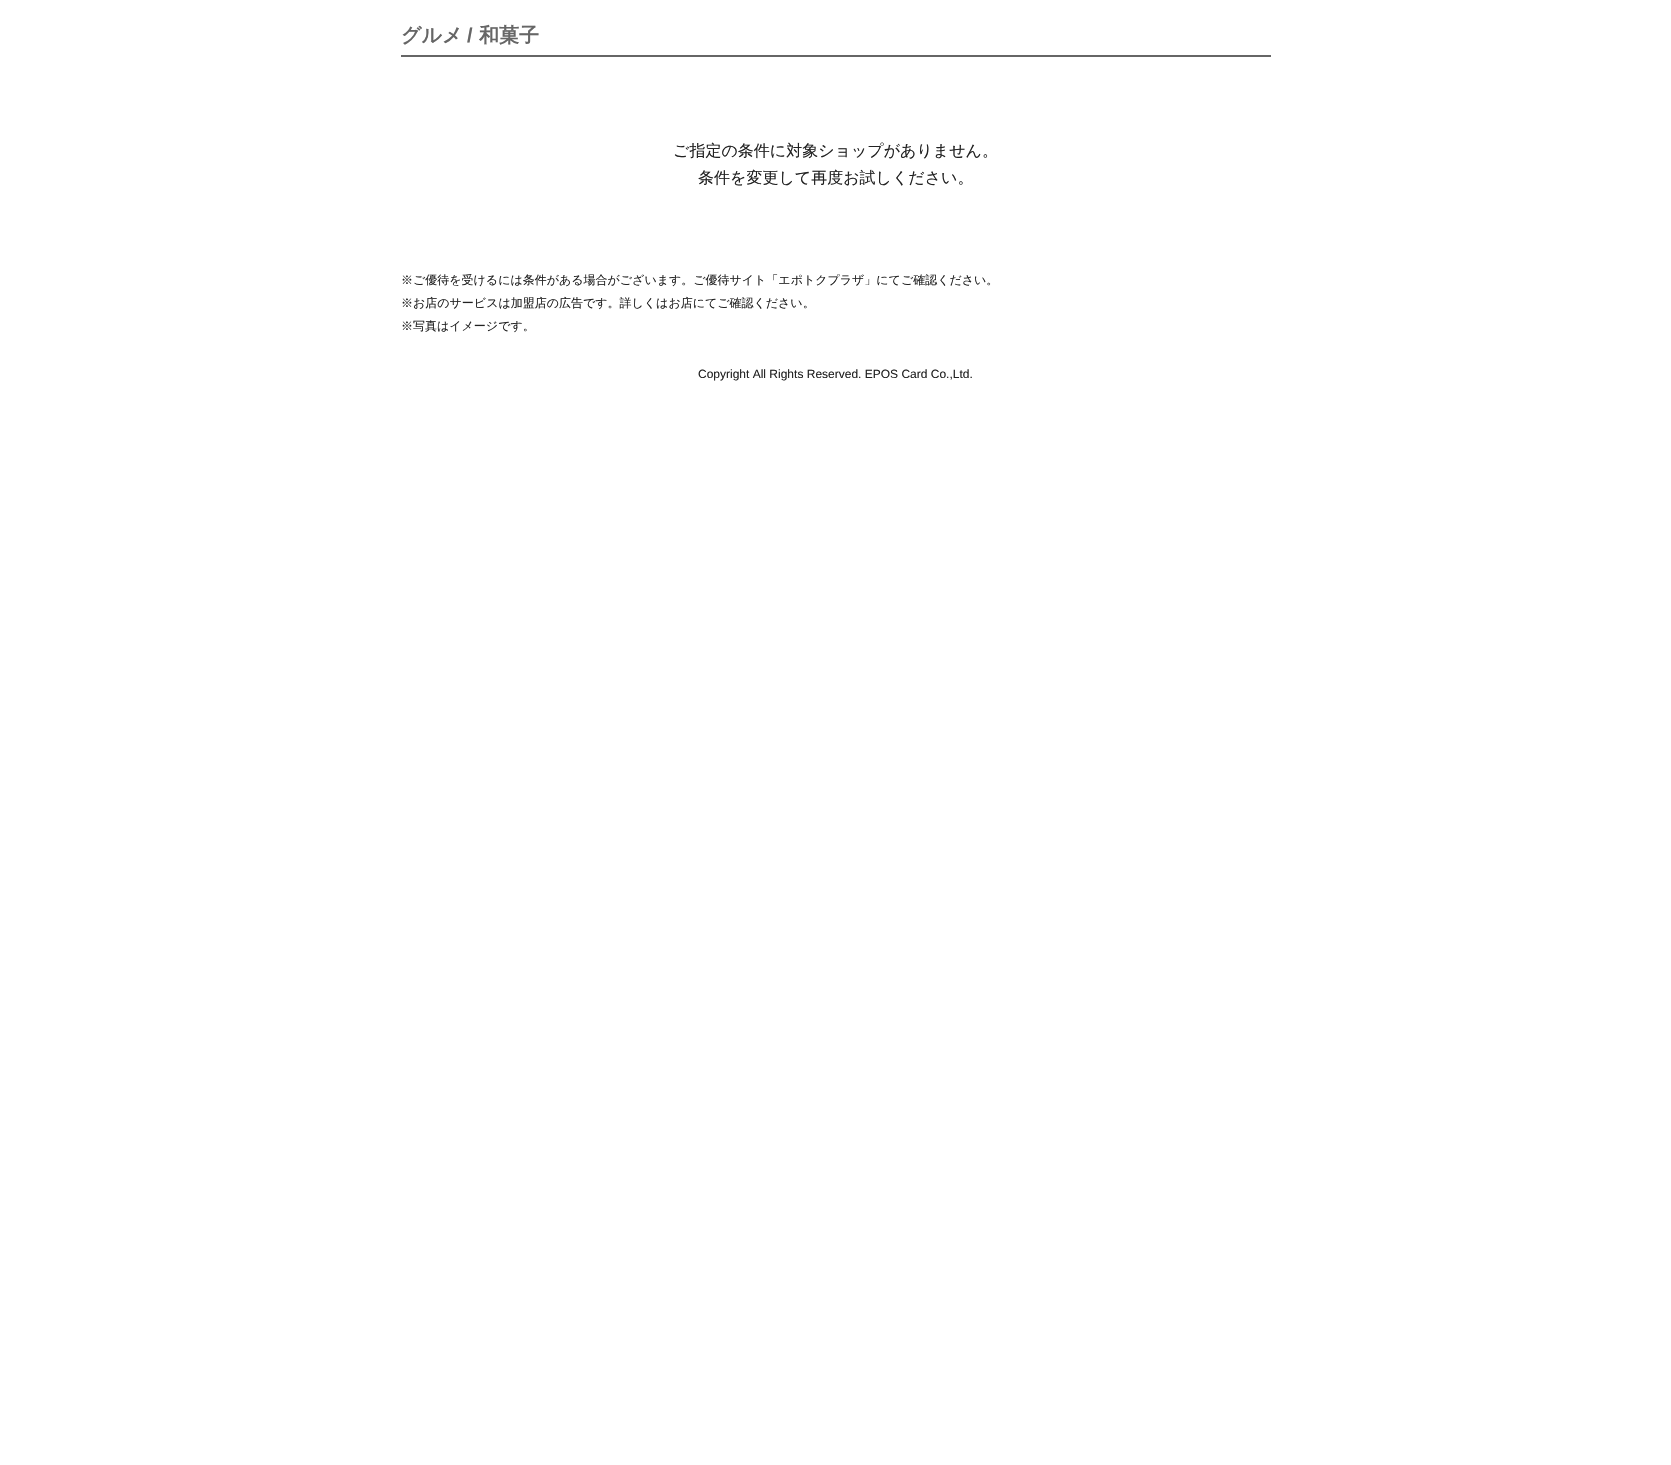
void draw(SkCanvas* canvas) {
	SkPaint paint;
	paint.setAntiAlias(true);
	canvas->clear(0xffffffff);
	paint.setColor(0xff666666);
	canvas->drawRect(SkRect::MakeXYWH(401, 55, 870, 2), paint);
	SkFont f1(fontMgr->matchFamilyStyle("WenQuanYi Zen Hei", SkFontStyle::Bold()), 20);
	f1.setSubpixel(true);
	canvas->drawString("グルメ", 401, 42, f1, paint);
	SkFont f2(fontMgr->matchFamilyStyle("Liberation Sans", SkFontStyle::Bold()), 20);
	f2.setSubpixel(true);
	canvas->drawString("/", 467, 42, f2, paint);
	canvas->drawString("和菓子", 479, 42, f1, paint);
	SkFont f3(fontMgr->matchFamilyStyle("WenQuanYi Zen Hei", SkFontStyle(500, SkFontStyle::kNormal_Width, SkFontStyle::kUpright_Slant)), 16);
	f3.setSubpixel(true);
	paint.setColor(0xff222222);
	canvas->drawString("ご指定の条件に対象ショップがありません。", 673, 156, f3, paint);
	canvas->drawString("条件を変更して再度お試しください。", 698, 183, f3, paint);
	SkFont f4(fontMgr->matchFamilyStyle("WenQuanYi Zen Hei", SkFontStyle(500, SkFontStyle::kNormal_Width, SkFontStyle::kUpright_Slant)), 12);
	f4.setSubpixel(true);
	canvas->drawString("※ご優待を受けるには条件がある場合がございます。ご優待サイト「エポトクプラザ」にてご確認ください。", 401, 284, f4, paint);
	canvas->drawString("※お店のサービスは加盟店の広告です。詳しくはお店にてご確認ください。", 401, 307, f4, paint);
	canvas->drawString("※写真はイメージです。", 401, 330, f4, paint);
	SkFont f5(fontMgr->matchFamilyStyle("Liberation Sans", SkFontStyle::Normal()), 12);
	f5.setSubpixel(true);
	canvas->drawString("Copyright All Rights Reserved. EPOS Card Co.,Ltd.", 698, 378, f5, paint);
}
